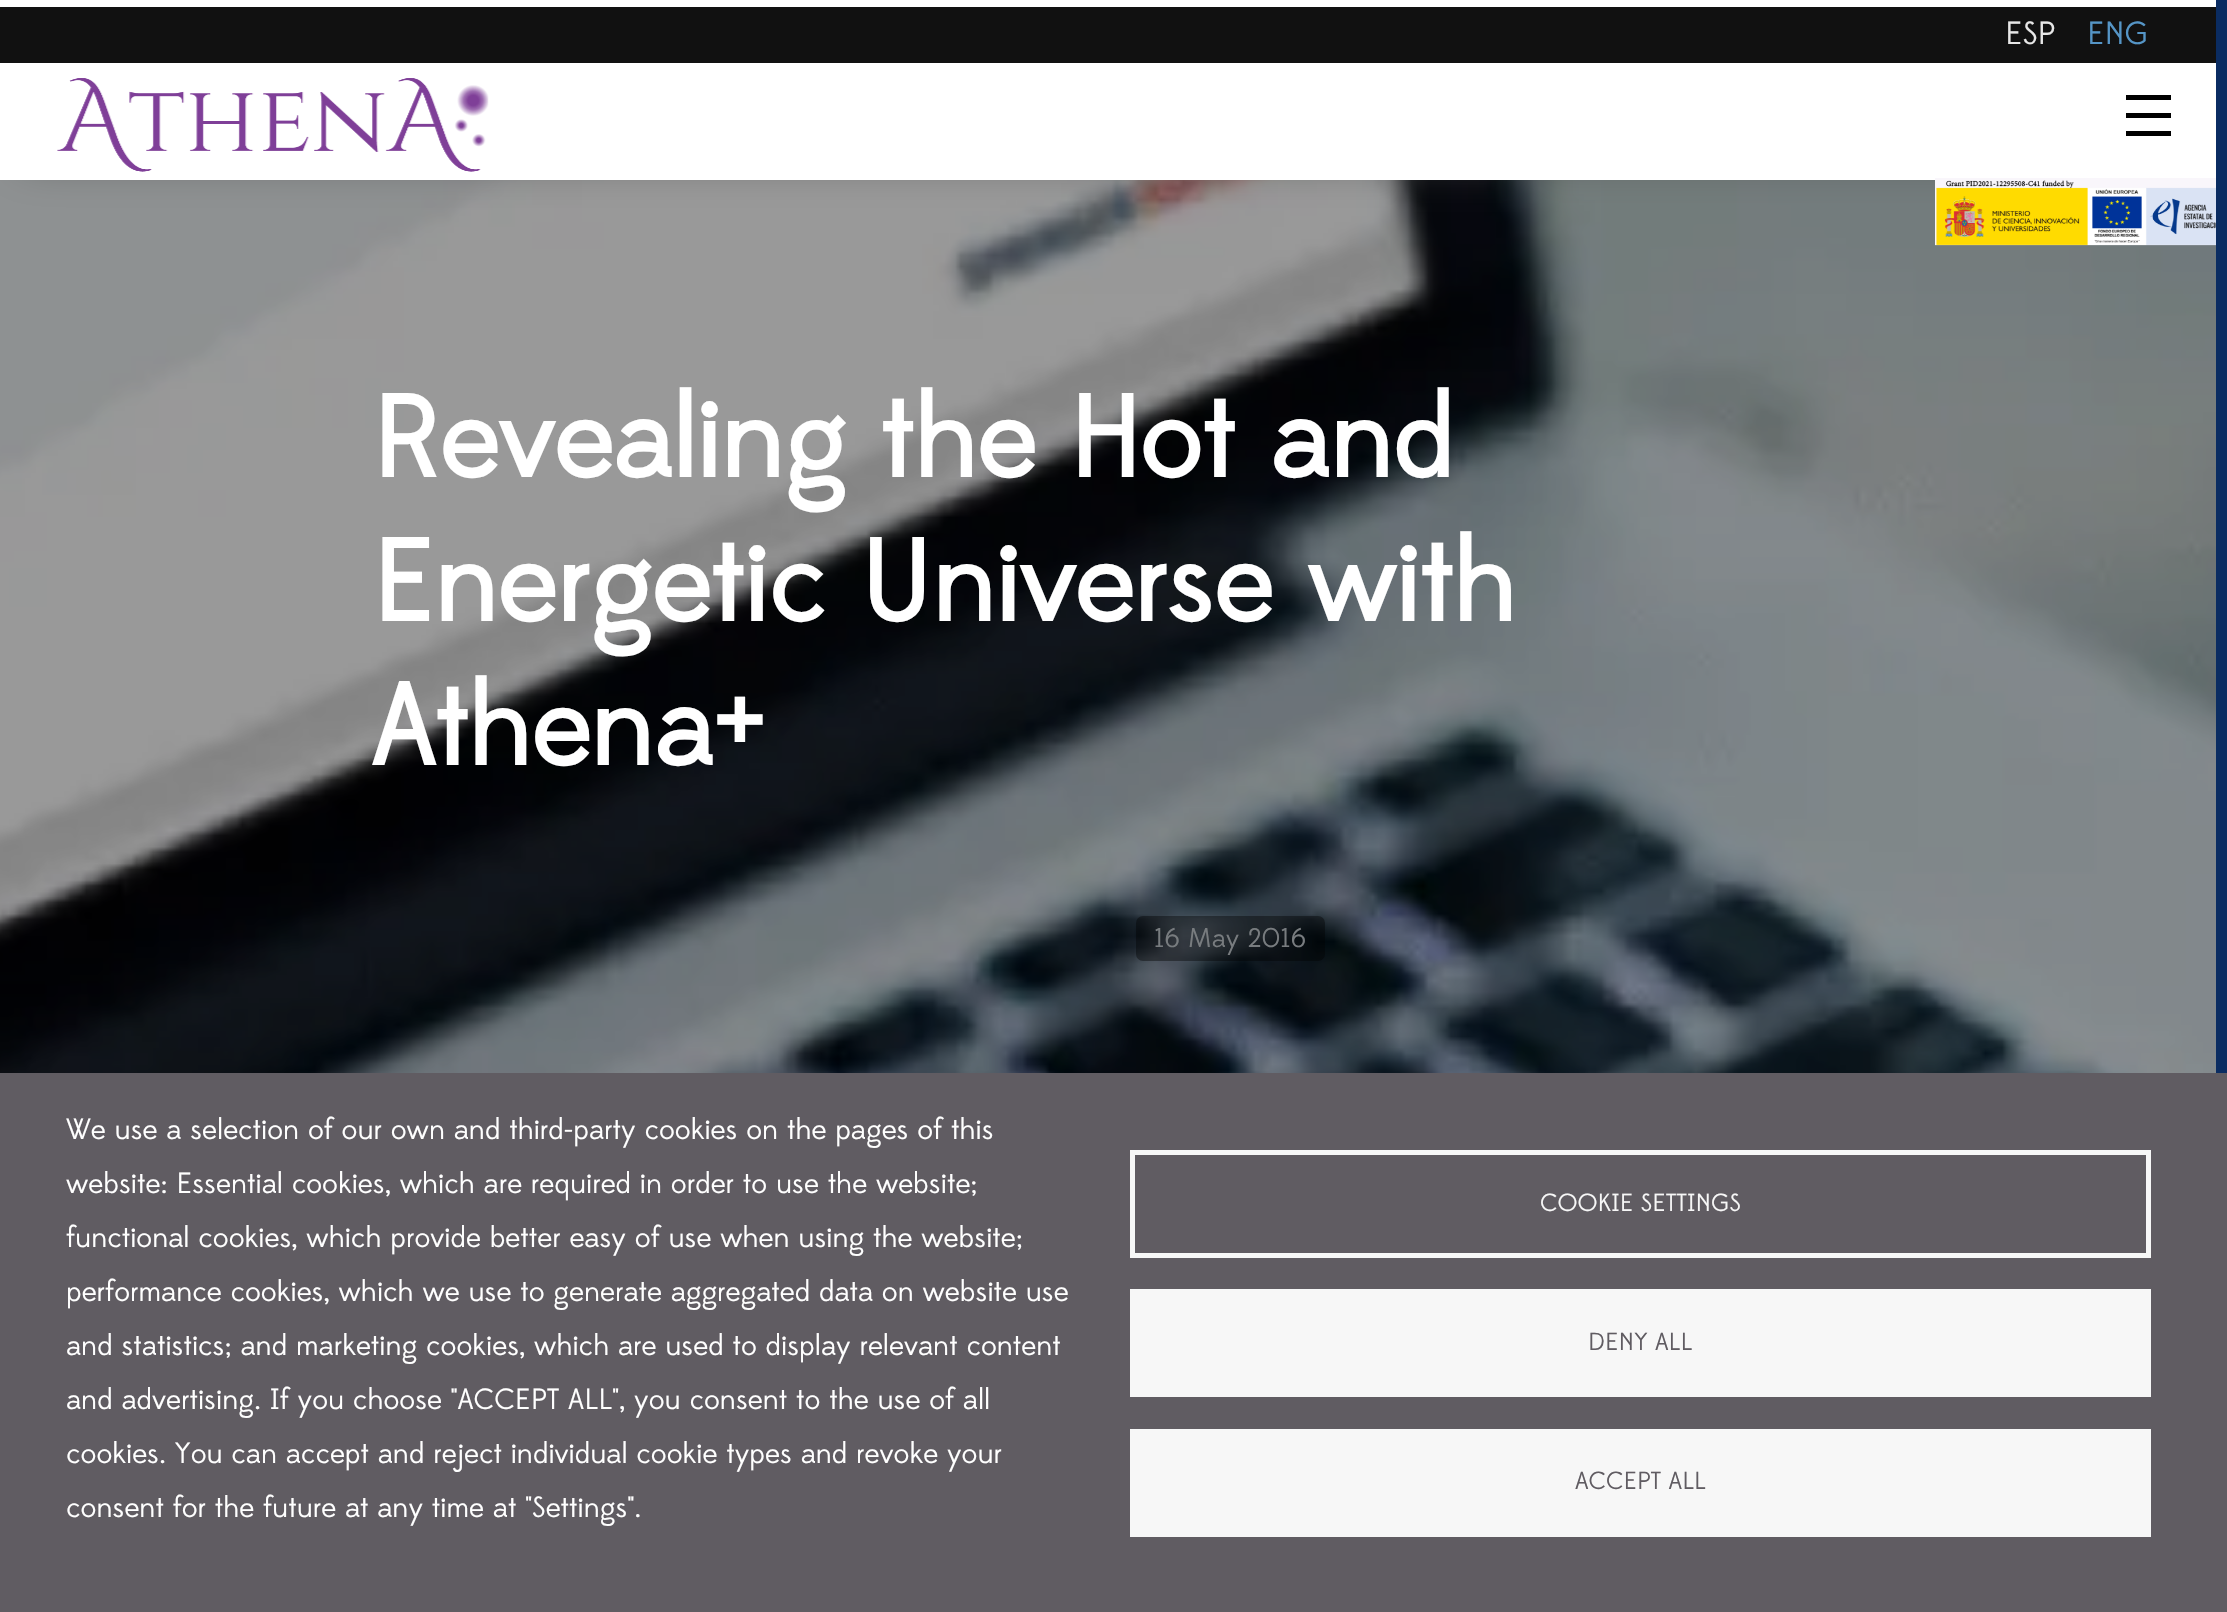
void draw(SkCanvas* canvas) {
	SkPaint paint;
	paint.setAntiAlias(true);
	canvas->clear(0xffffffff);
	canvas->drawImageRect(SkImages::DeferredFromEncodedData(SkData::MakeFromFileName("img3.png")), SkRect::MakeXYWH(0, 180, 2216, 893), SkSamplingOptions());
	paint.setColor(0xff525252);
	paint.setMaskFilter(SkMaskFilter::MakeBlur(kNormal_SkBlurStyle, 22.5));
	canvas->drawRect(SkRect::MakeXYWH(23, 23, 2182, 135), paint);
	paint.setMaskFilter(nullptr);
	paint.setColor(0xffffffff);
	canvas->drawRect(SkRect::MakeXYWH(0, 0, 2216, 180), paint);
	paint.setColor(0xff111111);
	canvas->drawRect(SkRect::MakeXYWH(0, 7, 2216, 56), paint);
	SkFont f1(fontMgr->matchFamilyStyle("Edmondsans", SkFontStyle::Normal()), 32);
	f1.setSubpixel(true);
	paint.setColor(0xffe7e7e7);
	canvas->drawString("ESP", 2005, 44, f1, paint);
	paint.setColor(0xff5595c6);
	canvas->drawString("ENG", 2087, 44, f1, paint);
	canvas->drawImageRect(SkImages::DeferredFromEncodedData(SkData::MakeFromFileName("img1.png")), SkRect::MakeXYWH(57, 78, 432, 94), SkSamplingOptions());
	canvas->drawImageRect(SkImages::DeferredFromEncodedData(SkData::MakeFromFileName("img2.png")), SkRect::MakeXYWH(1935, 178, 281, 68), SkSamplingOptions());
	paint.setColor(0xff000000);
	canvas->drawRect(SkRect::MakeXYWH(2126, 95, 45, 5), paint);
	canvas->drawRect(SkRect::MakeXYWH(2126, 113, 45, 5), paint);
	canvas->drawRect(SkRect::MakeXYWH(2126, 131, 45, 5), paint);
	SkFont f2(fontMgr->matchFamilyStyle("Edmondsans", SkFontStyle::Bold()), 115.25);
	f2.setSubpixel(true);
	paint.setColor(0xffffffff);
	canvas->drawString("Revealing the Hot and", 371, 477, f2, paint);
	canvas->drawString("Energetic Universe with", 371, 621, f2, paint);
	canvas->drawString("Athena+", 371, 765, f2, paint);
	paint.setColor(0x66000000);
	canvas->drawRoundRect(SkRect::MakeXYWH(1136, 916, 189, 45), 7, 7, paint);
	SkFont f3(fontMgr->matchFamilyStyle("Edmondsans", SkFontStyle::Normal()), 27);
	f3.setSubpixel(true);
	paint.setColor(0xff787c7f);
	canvas->drawString("16 May 2016", 1154, 947, f3, paint);
	paint.setColor(0xff605c62);
	canvas->drawRect(SkRect::MakeXYWH(0, 1073, 2227, 539), paint);
	SkFont f4(fontMgr->matchFamilyStyle("Edmondsans", SkFontStyle::Normal()), 29.25);
	f4.setSubpixel(true);
	paint.setColor(0xffffffff);
	canvas->drawString("We use a selection of our own and third-party cookies on the pages of this", 66, 1139, f4, paint);
	canvas->drawString("website: Essential cookies, which are required in order to use the website;", 66, 1193, f4, paint);
	canvas->drawString("functional cookies, which provide better easy of use when using the website;", 66, 1247, f4, paint);
	canvas->drawString("performance cookies, which we use to generate aggregated data on website use", 66, 1301, f4, paint);
	canvas->drawString("and statistics; and marketing cookies, which are used to display relevant content", 66, 1355, f4, paint);
	canvas->drawString("and advertising. If you choose \"ACCEPT ALL\", you consent to the use of all", 66, 1409, f4, paint);
	canvas->drawString("cookies. You can accept and reject individual cookie types and revoke your", 66, 1463, f4, paint);
	canvas->drawString("consent for the future at any time at \"Settings\".", 66, 1517, f4, paint);
	paint.setStroke(true);
	paint.setStrokeWidth(5);
	paint.setColor(0xfff7f7f7);
	canvas->drawRect(SkRect::MakeXYWH(1132.5, 1152.5, 1016, 103), paint);
	SkFont f5(fontMgr->matchFamilyStyle("Edmondsans", SkFontStyle::Normal()), 24.75);
	f5.setSubpixel(true);
	paint.setStroke(false);
	canvas->drawString("COOKIE SETTINGS", 1540, 1211, f5, paint);
	canvas->drawRect(SkRect::MakeXYWH(1130, 1289, 1021, 108), paint);
	paint.setColor(0xff605c62);
	canvas->drawString("DENY ALL", 1588, 1350, f5, paint);
	paint.setColor(0xfff7f7f7);
	canvas->drawRect(SkRect::MakeXYWH(1130, 1429, 1021, 108), paint);
	paint.setColor(0xff605c62);
	canvas->drawString("ACCEPT ALL", 1575, 1489, f5, paint);
	paint.setColor(0xff0a2c62);
	canvas->drawRect(SkRect::MakeXYWH(2216, 0, 11, 1073), paint);
}
